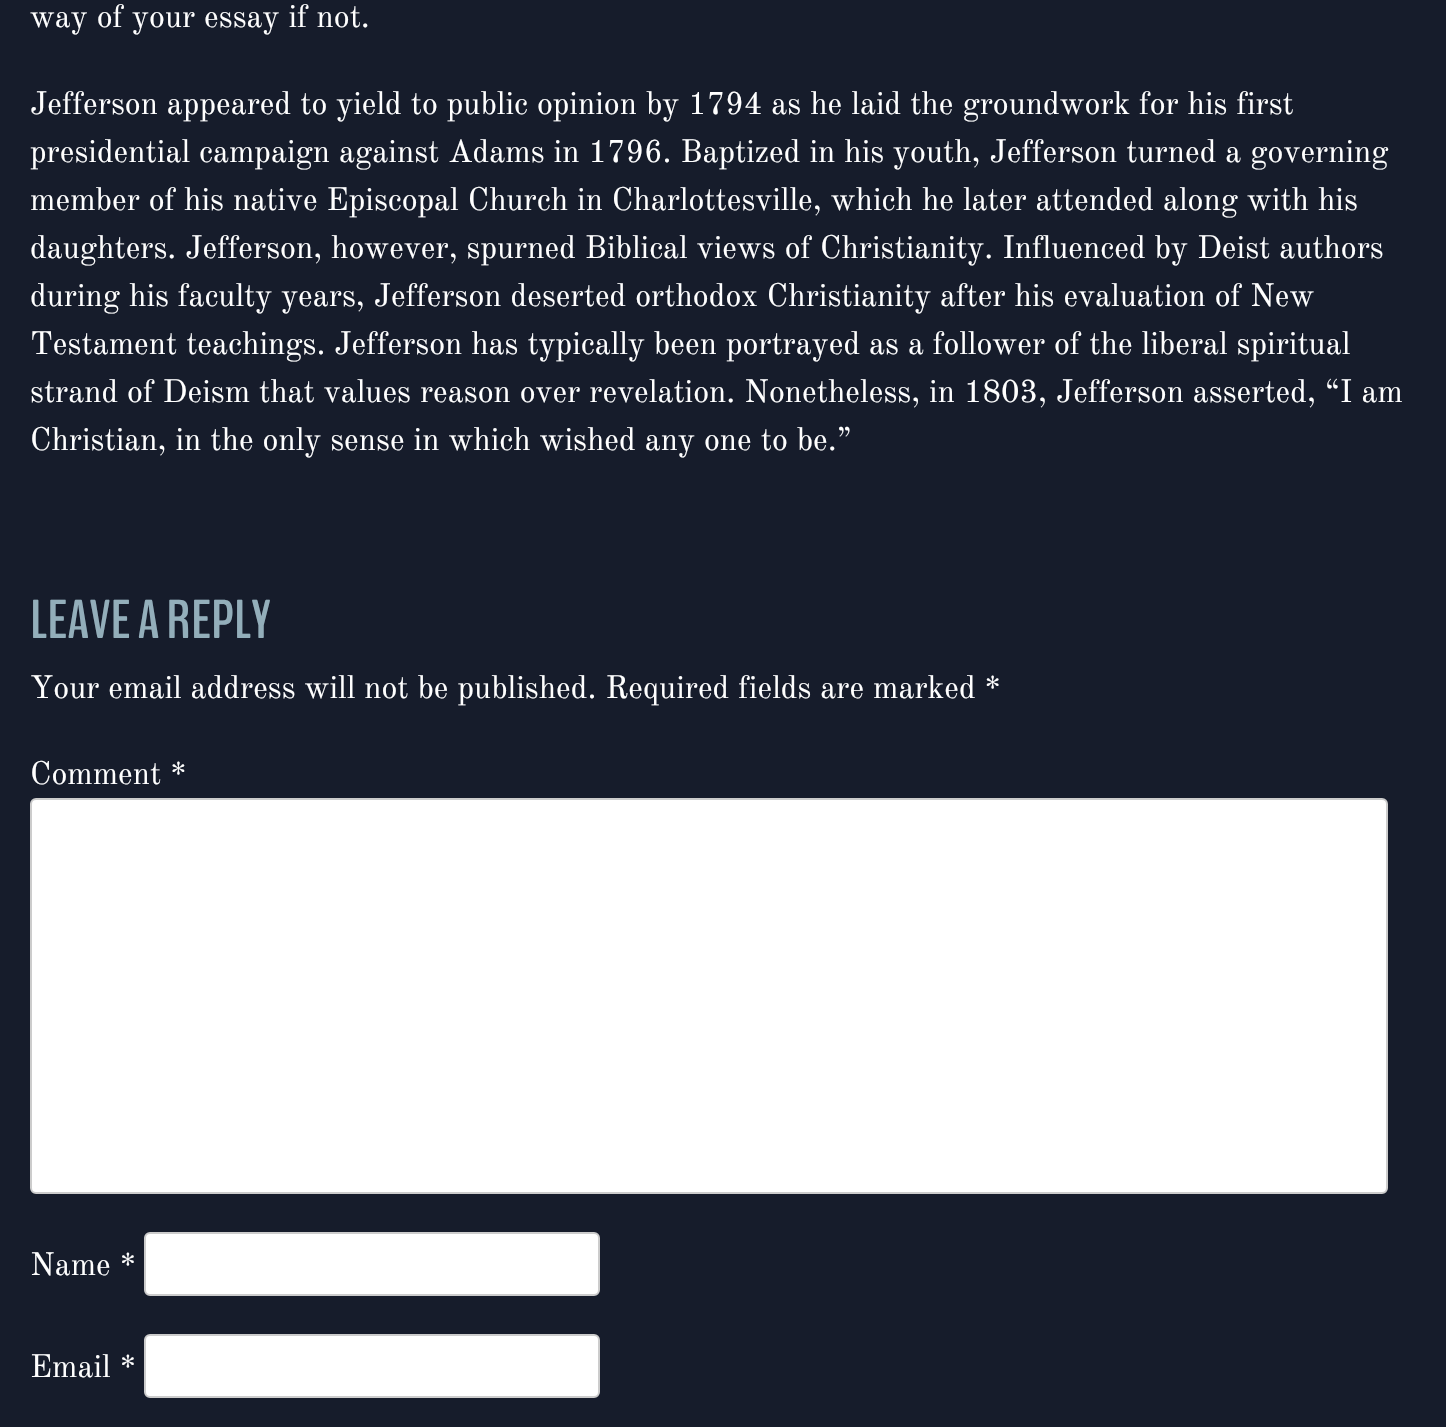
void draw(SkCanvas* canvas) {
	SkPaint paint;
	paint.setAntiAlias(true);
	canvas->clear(0xff161c2b);
	SkFont f1(fontMgr->matchFamilyStyle("Old Standard TT", SkFontStyle::Normal()), 32);
	f1.setSubpixel(true);
	paint.setColor(0xffffffff);
	canvas->drawString("way of your essay if not.", 30, 27, f1, paint);
	canvas->drawString("Jefferson appeared to yield to public opinion by 1794 as he laid the groundwork for his first", 30, 114, f1, paint);
	canvas->drawString("presidential campaign against Adams in 1796. Baptized in his youth, Jefferson turned a governing", 30, 162, f1, paint);
	canvas->drawString("member of his native Episcopal Church in Charlottesville, which he later attended along with his", 30, 210, f1, paint);
	canvas->drawString("daughters. Jefferson, however, spurned Biblical views of Christianity. Influenced by Deist authors", 30, 258, f1, paint);
	canvas->drawString("during his faculty years, Jefferson deserted orthodox Christianity after his evaluation of New", 30, 306, f1, paint);
	canvas->drawString("Testament teachings. Jefferson has typically been portrayed as a follower of the liberal spiritual", 30, 354, f1, paint);
	canvas->drawString("strand of Deism that values reason over revelation. Nonetheless, in 1803, Jefferson asserted, “I am", 30, 402, f1, paint);
	canvas->drawString("Christian, in the only sense in which wished any one to be.”", 30, 450, f1, paint);
	SkFont f2(fontMgr->matchFamilyStyle("BenchNine", SkFontStyle::Bold()), 54.5);
	f2.setSubpixel(true);
	paint.setColor(0xff93aeba);
	canvas->drawString("LEAVE A REPLY", 30, 638, f2, paint);
	paint.setColor(0xffffffff);
	canvas->drawString("Your email address will not be published. Required fields are marked *", 30, 698, f1, paint);
	canvas->drawString("Comment *", 30, 784, f1, paint);
	canvas->drawRoundRect(SkRect::MakeXYWH(31, 799, 1356, 394), 5, 5, paint);
	paint.setStroke(true);
	paint.setStrokeWidth(2);
	paint.setColor(0xffcccccc);
	canvas->drawRoundRect(SkRect::MakeXYWH(31, 799, 1356, 394), 5, 5, paint);
	paint.setStroke(false);
	paint.setColor(0xffffffff);
	canvas->drawString("Name *", 30, 1275, f1, paint);
	canvas->drawRoundRect(SkRect::MakeXYWH(145, 1233, 454, 62), 5, 5, paint);
	paint.setStroke(true);
	paint.setColor(0xffcccccc);
	canvas->drawRoundRect(SkRect::MakeXYWH(145, 1233, 454, 62), 5, 5, paint);
	paint.setStroke(false);
	paint.setColor(0xffffffff);
	canvas->drawString("Email *", 30, 1377, f1, paint);
	canvas->drawRoundRect(SkRect::MakeXYWH(145, 1335, 454, 62), 5, 5, paint);
	paint.setStroke(true);
	paint.setColor(0xffcccccc);
	canvas->drawRoundRect(SkRect::MakeXYWH(145, 1335, 454, 62), 5, 5, paint);
}
